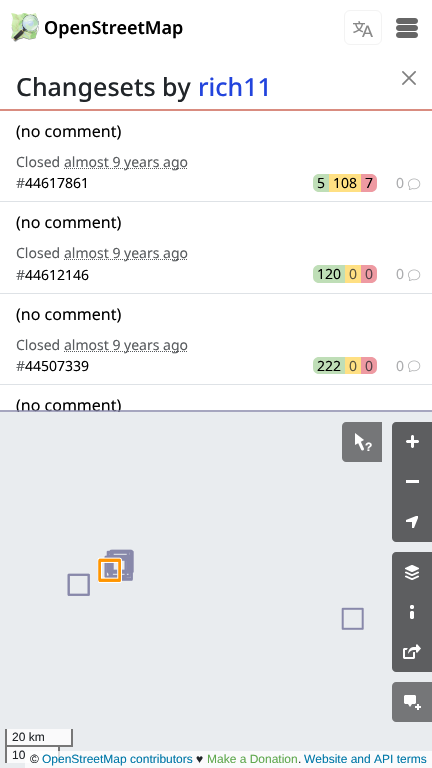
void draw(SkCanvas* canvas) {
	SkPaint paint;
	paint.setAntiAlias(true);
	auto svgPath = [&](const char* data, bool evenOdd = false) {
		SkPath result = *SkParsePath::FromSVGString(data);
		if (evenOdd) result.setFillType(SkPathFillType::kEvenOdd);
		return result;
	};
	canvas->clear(0xffffffff);
	canvas->drawImageRect(SkImages::DeferredFromEncodedData(SkData::MakeFromFileName("img1.png")), SkRect::MakeXYWH(11, 13, 28, 29), SkSamplingOptions());
	SkFont f1(fontMgr->matchFamilyStyle("Noto Sans", SkFontStyle(600, SkFontStyle::kNormal_Width, SkFontStyle::kUpright_Slant)), 18);
	f1.setSubpixel(true);
	paint.setColor(0xff000000);
	canvas->drawString("OpenStreetMap", 44, 34, f1, paint);
	paint.setStroke(true);
	paint.setStrokeWidth(1);
	paint.setColor(0xfff3f3f3);
	canvas->drawRoundRect(SkRect::MakeXYWH(344.5, 10.5, 37, 34), 5.5, 5.5, paint);
	canvas->drawImageRect(SkImages::DeferredFromEncodedData(SkData::MakeFromFileName("img2.png")), SkRect::MakeXYWH(353, 21, 20, 16), SkSamplingOptions());
	canvas->drawImageRect(SkImages::DeferredFromEncodedData(SkData::MakeFromFileName("img3.png")), SkRect::MakeXYWH(396, 18, 22, 20), SkSamplingOptions());
	SkFont f2(fontMgr->matchFamilyStyle("Noto Sans", SkFontStyle(500, SkFontStyle::kNormal_Width, SkFontStyle::kUpright_Slant)), 25);
	f2.setSubpixel(true);
	paint.setStroke(false);
	paint.setColor(0xff212529);
	canvas->drawString("Changesets by", 16, 96, f2, paint);
	paint.setColor(0xff2244dd);
	canvas->drawString("rich11", 198, 96, f2, paint);
	paint.setColor(0xffd98c80);
	canvas->drawRect(SkRect::MakeXYWH(0, 109, 432, 2), paint);
	paint.setColor(0xffdee2e6);
	canvas->drawRect(SkRect::MakeXYWH(0, 201, 432, 1), paint);
	SkFont f3(fontMgr->matchFamilyStyle("Noto Sans", SkFontStyle::Normal()), 16);
	f3.setSubpixel(true);
	paint.setColor(0xff000000);
	canvas->drawString("(no comment)", 16, 137, f3, paint);
	SkFont f4(fontMgr->matchFamilyStyle("Noto Sans", SkFontStyle::Normal()), 14);
	f4.setSubpixel(true);
	paint.setColor(0xff595c5f);
	canvas->drawString("Closed", 16, 167, f4, paint);
	paint.setStroke(true);
	paint.setPathEffect(SkDashPathEffect::Make({{1, 1}}, 0));
	canvas->drawPath(svgPath("M64 168.5H188"), paint);
	paint.setPathEffect(nullptr);
	paint.setStroke(false);
	canvas->drawString("almost 9 years ago", 64, 167, f4, paint);
	canvas->drawString("#", 16, 188, f4, paint);
	paint.setColor(0xff000000);
	canvas->drawString("44617861", 25, 188, f4, paint);
	paint.setColor(0xffbfdeb7);
	canvas->drawPath(svgPath("M319 174H329V192H319C315.5 192 313 189.5 313 186V180C313 176.5 315.5 174 319 174Z"), paint);
	paint.setColor(0xff000000);
	canvas->drawString("5", 317, 188, f4, paint);
	paint.setColor(0xffffe083);
	canvas->drawRect(SkRect::MakeXYWH(329, 174, 32, 18), paint);
	paint.setColor(0xff000000);
	canvas->drawString("108", 333, 188, f4, paint);
	paint.setColor(0xffee9aa2);
	canvas->drawPath(svgPath("M361 174H371C374.5 174 377 176.5 377 180V186C377 189.5 374.5 192 371 192H361Z"), paint);
	paint.setColor(0xff000000);
	canvas->drawString("7", 365, 188, f4, paint);
	paint.setColor(0xffacadaf);
	canvas->drawString("0", 396, 188, f4, paint);
	canvas->drawImageRect(SkImages::DeferredFromEncodedData(SkData::MakeFromFileName("img4.png")), SkRect::MakeXYWH(408, 178, 13, 12), SkSamplingOptions());
	paint.setColor(0xffdee2e6);
	canvas->drawRect(SkRect::MakeXYWH(0, 293, 432, 1), paint);
	paint.setColor(0xff000000);
	canvas->drawString("(no comment)", 16, 228, f3, paint);
	paint.setColor(0xff595c5f);
	canvas->drawString("Closed", 16, 258, f4, paint);
	paint.setStroke(true);
	paint.setPathEffect(SkDashPathEffect::Make({{1, 1}}, 0));
	canvas->drawPath(svgPath("M64 259.5H188"), paint);
	paint.setPathEffect(nullptr);
	paint.setStroke(false);
	canvas->drawString("almost 9 years ago", 64, 258, f4, paint);
	canvas->drawString("#", 16, 280, f4, paint);
	paint.setColor(0xff000000);
	canvas->drawString("44612146", 25, 280, f4, paint);
	paint.setColor(0xffbfdeb7);
	canvas->drawPath(svgPath("M319 265H345V283H319C315.5 283 313 280.5 313 277V271C313 267.5 315.5 265 319 265Z"), paint);
	paint.setColor(0xff000000);
	canvas->drawString("120", 317, 279, f4, paint);
	paint.setColor(0xffffe083);
	canvas->drawRect(SkRect::MakeXYWH(345, 265, 16, 18), paint);
	paint.setColor(0xff595440);
	canvas->drawString("0", 349, 279, f4, paint);
	paint.setColor(0xffee9aa2);
	canvas->drawPath(svgPath("M361 265H371C374.5 265 377 267.5 377 271V277C377 280.5 374.5 283 371 283H361Z"), paint);
	paint.setColor(0xff544247);
	canvas->drawString("0", 365, 279, f4, paint);
	paint.setColor(0xffacadaf);
	canvas->drawString("0", 396, 279, f4, paint);
	canvas->drawImageRect(SkImages::DeferredFromEncodedData(SkData::MakeFromFileName("img4.png")), SkRect::MakeXYWH(408, 269, 13, 12), SkSamplingOptions());
	paint.setColor(0xffdee2e6);
	canvas->drawRect(SkRect::MakeXYWH(0, 384, 432, 1), paint);
	paint.setColor(0xff000000);
	canvas->drawString("(no comment)", 16, 320, f3, paint);
	paint.setColor(0xff595c5f);
	canvas->drawString("Closed", 16, 350, f4, paint);
	paint.setStroke(true);
	paint.setPathEffect(SkDashPathEffect::Make({{1, 1}}, 0));
	canvas->drawPath(svgPath("M64 351.5H188"), paint);
	paint.setPathEffect(nullptr);
	paint.setStroke(false);
	canvas->drawString("almost 9 years ago", 64, 350, f4, paint);
	canvas->drawString("#", 16, 371, f4, paint);
	paint.setColor(0xff000000);
	canvas->drawString("44507339", 25, 371, f4, paint);
	paint.setColor(0xffbfdeb7);
	canvas->drawPath(svgPath("M319 357H345V374H319C315.5 374 313 371.5 313 368V363C313 359.5 315.5 357 319 357Z"), paint);
	paint.setColor(0xff000000);
	canvas->drawString("222", 317, 371, f4, paint);
	paint.setColor(0xffffe083);
	canvas->drawRect(SkRect::MakeXYWH(345, 357, 16, 17), paint);
	paint.setColor(0xff595440);
	canvas->drawString("0", 349, 371, f4, paint);
	paint.setColor(0xffee9aa2);
	canvas->drawPath(svgPath("M361 357H371C374.5 357 377 359.5 377 363V368C377 371.5 374.5 374 371 374H361Z"), paint);
	paint.setColor(0xff544247);
	canvas->drawString("0", 365, 371, f4, paint);
	paint.setColor(0xffacadaf);
	canvas->drawString("0", 396, 371, f4, paint);
	canvas->drawImageRect(SkImages::DeferredFromEncodedData(SkData::MakeFromFileName("img4.png")), SkRect::MakeXYWH(408, 360, 13, 12), SkSamplingOptions());
	canvas->save();
	canvas->clipRect(SkRect::MakeXYWH(16, 393, 400, 19));
	paint.setColor(0xff000000);
	canvas->drawString("(no comment)", 16, 411, f3, paint);
	canvas->restore();
	paint.setColor(0xbf8888aa);
	canvas->drawRect(SkRect::MakeXYWH(0, 410, 432, 2), paint);
	canvas->drawImageRect(SkImages::DeferredFromEncodedData(SkData::MakeFromFileName("img5.png")), SkRect::MakeXYWH(402, 71, 14, 14), SkSamplingOptions());
	paint.setColor(0xffe9ecef);
	canvas->drawRect(SkRect::MakeXYWH(0, 412, 432, 356), paint);
	paint.setColor(0xfffafafb);
	canvas->drawRect(SkRect::MakeXYWH(7, 747, 51, 16), paint);
	paint.setColor(0xff757678);
	canvas->drawPath(svgPath("M346 422H382V462H346C344 462 342 460 342 458V426C342 424 344 422 346 422Z"), paint);
	canvas->drawImageRect(SkImages::DeferredFromEncodedData(SkData::MakeFromFileName("img6.png")), SkRect::MakeXYWH(355, 433, 9, 18), SkSamplingOptions());
	SkFont f5(fontMgr->matchFamilyStyle("Liberation Sans", SkFontStyle::Bold()), 12);
	f5.setSubpixel(true);
	paint.setColor(0xffffffff);
	canvas->drawString("?", 365, 451, f5, paint);
	paint.setColor(0xff5d5e60);
	canvas->drawPath(svgPath("M396 422H432V462H392V426C392 424 394 422 396 422Z"), paint);
	canvas->drawImageRect(SkImages::DeferredFromEncodedData(SkData::MakeFromFileName("img7.png")), SkRect::MakeXYWH(406, 435, 13, 13), SkSamplingOptions());
	canvas->drawRect(SkRect::MakeXYWH(392, 462, 40, 40), paint);
	paint.setColor(0xffffffff);
	canvas->drawRect(SkRect::MakeXYWH(406, 480, 13, 3), paint);
	paint.setColor(0xff5d5e60);
	canvas->drawPath(svgPath("M392 502H432V542H396C394 542 392 540 392 538Z"), paint);
	canvas->drawImageRect(SkImages::DeferredFromEncodedData(SkData::MakeFromFileName("img8.png")), SkRect::MakeXYWH(406, 516, 12, 12), SkSamplingOptions());
	canvas->drawPath(svgPath("M396 552H432V592H392V556C392 554 394 552 396 552Z"), paint);
	canvas->drawImageRect(SkImages::DeferredFromEncodedData(SkData::MakeFromFileName("img9.png")), SkRect::MakeXYWH(405, 565, 14, 15), SkSamplingOptions());
	canvas->drawRect(SkRect::MakeXYWH(392, 592, 40, 40), paint);
	canvas->drawImageRect(SkImages::DeferredFromEncodedData(SkData::MakeFromFileName("img10.png")), SkRect::MakeXYWH(410, 605, 4, 14), SkSamplingOptions());
	canvas->drawPath(svgPath("M392 632H432V672H396C394 672 392 670 392 668Z"), paint);
	canvas->drawImageRect(SkImages::DeferredFromEncodedData(SkData::MakeFromFileName("img11.png")), SkRect::MakeXYWH(403, 644, 18, 15), SkSamplingOptions());
	paint.setColor(0xff757678);
	canvas->drawPath(svgPath("M396 682H432V722H396C394 722 392 720 392 718V686C392 684 394 682 396 682Z"), paint);
	canvas->drawImageRect(SkImages::DeferredFromEncodedData(SkData::MakeFromFileName("img12.png")), SkRect::MakeXYWH(404, 695, 17, 15), SkSamplingOptions());
	paint.setColor(0xfffafafb);
	canvas->drawRect(SkRect::MakeXYWH(7, 729, 64, 16), paint);
	paint.setColor(0xff777777);
	canvas->drawRect(SkRect::MakeXYWH(71, 729, 2, 18), paint);
	canvas->drawRect(SkRect::MakeXYWH(60, 745, 13, 2), paint);
	canvas->drawRect(SkRect::MakeXYWH(5, 729, 2, 18), paint);
	SkFont f6(fontMgr->matchFamilyStyle("Liberation Sans", SkFontStyle::Normal()), 12);
	f6.setSubpixel(true);
	paint.setColor(0xff212529);
	canvas->drawString("20 km", 12, 741, f6, paint);
	paint.setColor(0xff777777);
	canvas->drawRect(SkRect::MakeXYWH(5, 745, 55, 2), paint);
	canvas->drawRect(SkRect::MakeXYWH(58, 745, 2, 18), paint);
	canvas->drawRect(SkRect::MakeXYWH(5, 745, 2, 18), paint);
	paint.setColor(0xff212529);
	canvas->drawString("10", 12, 759, f6, paint);
	paint.setColor(0xbfffffff);
	canvas->drawRect(SkRect::MakeXYWH(25, 751, 407, 17), paint);
	paint.setColor(0xff212529);
	canvas->drawString("©", 30, 763, f6, paint);
	paint.setColor(0xff0078a8);
	canvas->drawString("OpenStreetMap contributors", 42, 763, f6, paint);
	paint.setColor(0xff212529);
	canvas->drawString("♥", 196, 763, f6, paint);
	paint.setColor(0xff60a94f);
	canvas->drawString("Make a Donation", 207, 763, f6, paint);
	paint.setColor(0xff212529);
	canvas->drawString(".", 298, 763, f6, paint);
	paint.setColor(0xff0078a8);
	canvas->drawString("Website and API terms", 304, 763, f6, paint);
	canvas->drawImageRect(SkImages::DeferredFromEncodedData(SkData::MakeFromFileName("img13.png")), SkRect::MakeXYWH(67, 549, 297, 81), SkSamplingOptions());
}
